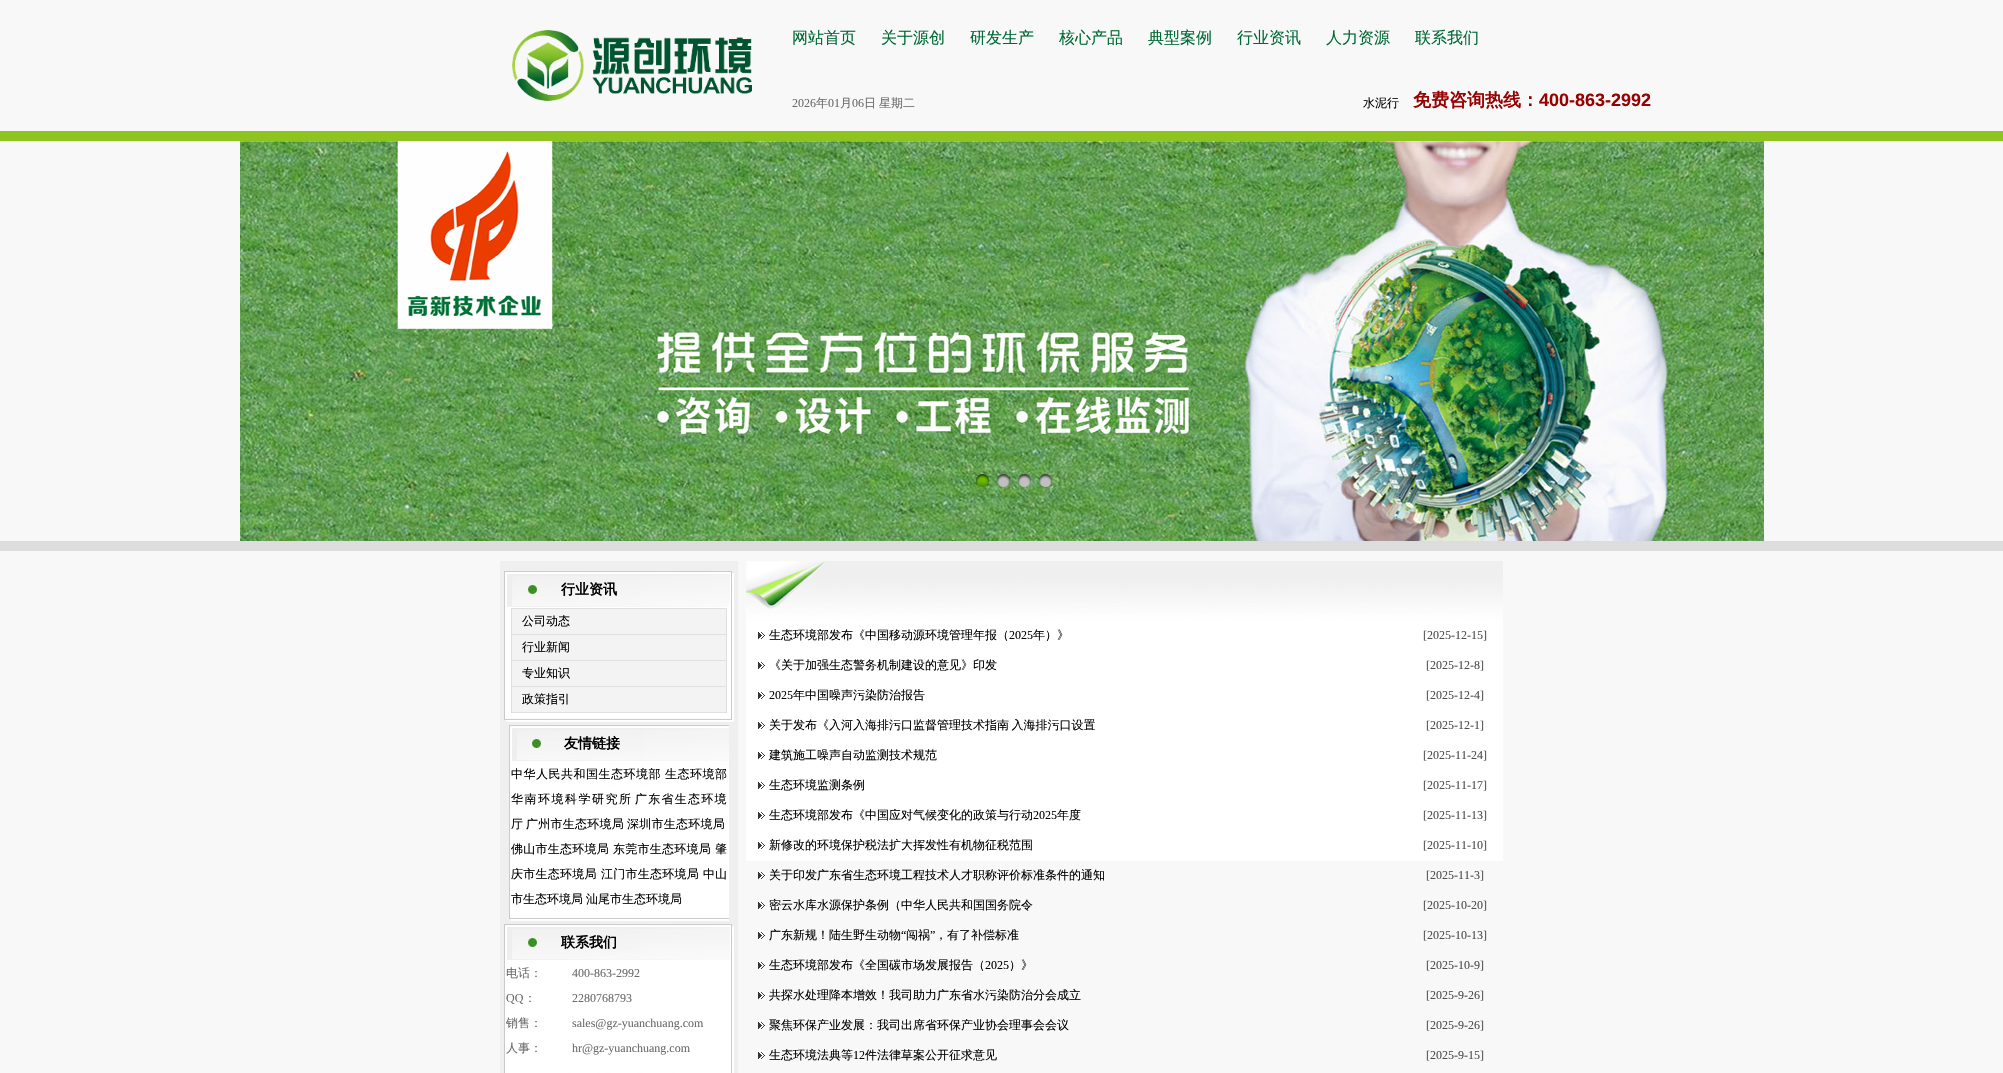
void draw(SkCanvas* canvas) {
	SkPaint paint;
	paint.setAntiAlias(true);
	auto spacedText = [&](const char* s, float x, float y, const SkFont& font, const SkPaint& ink, float letter, float word) {
		std::vector<SkGlyphID> glyphs(font.countText(s, strlen(s), SkTextEncoding::kUTF8));
		std::vector<float> xs(glyphs.size());
		font.textToGlyphs(s, strlen(s), SkTextEncoding::kUTF8, glyphs);
		font.getXPos(glyphs, xs, x);
		float extra = 0;
		for (size_t i = 0; i < glyphs.size(); i++) {
			xs[i] += extra;
			extra += letter + word * (glyphs[i] == font.unicharToGlyph(' '));
		}
		canvas->drawTextBlob(SkTextBlob::MakeFromPosHGlyphs(glyphs, xs, y, font), 0, 0, ink);
	};
	canvas->clear(0xfff8f8f8);
	canvas->drawImageRect(SkImages::DeferredFromEncodedData(SkData::MakeFromFileName("img1.png")), SkRect::MakeXYWH(512, 30, 240, 71), SkSamplingOptions());
	SkFont f1(fontMgr->matchFamilyStyle("WenQuanYi Zen Hei", SkFontStyle(500, SkFontStyle::kNormal_Width, SkFontStyle::kUpright_Slant)), 16);
	f1.setSubpixel(true);
	paint.setColor(0xff006934);
	canvas->drawString("网站首页", 792, 43, f1, paint);
	canvas->drawString("关于源创", 881, 43, f1, paint);
	canvas->drawString("研发生产", 970, 43, f1, paint);
	canvas->drawString("核心产品", 1059, 43, f1, paint);
	canvas->drawString("典型案例", 1148, 43, f1, paint);
	canvas->drawString("行业资讯", 1237, 43, f1, paint);
	canvas->drawString("人力资源", 1326, 43, f1, paint);
	canvas->drawString("联系我们", 1415, 43, f1, paint);
	SkFont f2(fontMgr->matchFamilyStyle("Liberation Serif", SkFontStyle::Normal()), 12);
	f2.setSubpixel(true);
	paint.setColor(0xff6a6a6a);
	canvas->drawString("2026", 792, 107, f2, paint);
	SkFont f3(fontMgr->matchFamilyStyle("WenQuanYi Zen Hei", SkFontStyle(500, SkFontStyle::kNormal_Width, SkFontStyle::kUpright_Slant)), 12);
	f3.setSubpixel(true);
	canvas->drawString("年", 816, 107, f3, paint);
	canvas->drawString("01", 828, 107, f2, paint);
	canvas->drawString("月", 840, 107, f3, paint);
	canvas->drawString("06", 852, 107, f2, paint);
	canvas->drawString("日", 864, 107, f3, paint);
	canvas->drawString("星期二", 879, 107, f3, paint);
	paint.setColor(0xff000000);
	canvas->drawString("水泥行", 1363, 107, f3, paint);
	SkFont f4(fontMgr->matchFamilyStyle("WenQuanYi Zen Hei", SkFontStyle::Bold()), 18);
	f4.setSubpixel(true);
	paint.setColor(0xff990000);
	canvas->drawString("免费咨询热线：", 1413, 106, f4, paint);
	SkFont f5(fontMgr->matchFamilyStyle("Liberation Sans", SkFontStyle::Bold()), 18);
	f5.setSubpixel(true);
	canvas->drawString("400-863-2992", 1539, 106, f5, paint);
	paint.setColor(0xff8fc31f);
	canvas->drawRect(SkRect::MakeXYWH(0, 131, 2003, 10), paint);
	paint.setColor(0xffdddddd);
	canvas->drawRect(SkRect::MakeXYWH(0, 541, 2003, 10), paint);
	canvas->drawImageRect(SkImages::DeferredFromEncodedData(SkData::MakeFromFileName("img2.png")), SkRect::MakeXYWH(240, 141, 1524, 400), SkSamplingOptions());
	canvas->drawImageRect(SkImages::DeferredFromEncodedData(SkData::MakeFromFileName("img3.png")), SkRect::MakeXYWH(976, 474, 13, 13), SkSamplingOptions());
	canvas->drawImageRect(SkImages::DeferredFromEncodedData(SkData::MakeFromFileName("img4.png")), SkRect::MakeXYWH(997, 474, 13, 13), SkSamplingOptions());
	canvas->drawImageRect(SkImages::DeferredFromEncodedData(SkData::MakeFromFileName("img5.png")), SkRect::MakeXYWH(1018, 474, 13, 13), SkSamplingOptions());
	canvas->drawImageRect(SkImages::DeferredFromEncodedData(SkData::MakeFromFileName("img6.png")), SkRect::MakeXYWH(1039, 474, 13, 13), SkSamplingOptions());
	paint.setColor(0xffefefef);
	canvas->drawRect(SkRect::MakeXYWH(500, 561, 238, 512), paint);
	canvas->drawImageRect(SkImages::DeferredFromEncodedData(SkData::MakeFromFileName("img7.png")), SkRect::MakeXYWH(504, 571, 230, 37), SkSamplingOptions());
	canvas->drawImageRect(SkImages::DeferredFromEncodedData(SkData::MakeFromFileName("img8.png")), SkRect::MakeXYWH(528, 585, 9, 9), SkSamplingOptions());
	SkFont f6(fontMgr->matchFamilyStyle("WenQuanYi Zen Hei", SkFontStyle::Bold()), 14);
	f6.setSubpixel(true);
	paint.setColor(0xff000000);
	canvas->drawString("行业资讯", 561, 594, f6, paint);
	canvas->drawImageRect(SkImages::DeferredFromEncodedData(SkData::MakeFromFileName("img9.png")), SkRect::MakeXYWH(504, 608, 230, 105), SkSamplingOptions());
	paint.setColor(0xfff3f3f3);
	canvas->drawRect(SkRect::MakeXYWH(512, 609, 214, 25), paint);
	paint.setColor(0xffe0e0e0);
	canvas->drawRect(SkRect::MakeXYWH(511, 608, 216, 1), paint);
	canvas->drawRect(SkRect::MakeXYWH(511, 634, 216, 1), paint);
	canvas->drawRect(SkRect::MakeXYWH(511, 660, 216, 1), paint);
	canvas->drawRect(SkRect::MakeXYWH(511, 686, 216, 1), paint);
	canvas->drawRect(SkRect::MakeXYWH(726, 686, 1, 27), paint);
	canvas->drawRect(SkRect::MakeXYWH(726, 660, 1, 27), paint);
	canvas->drawRect(SkRect::MakeXYWH(726, 634, 1, 27), paint);
	canvas->drawRect(SkRect::MakeXYWH(726, 608, 1, 27), paint);
	canvas->drawRect(SkRect::MakeXYWH(511, 712, 216, 1), paint);
	canvas->drawRect(SkRect::MakeXYWH(511, 686, 1, 27), paint);
	canvas->drawRect(SkRect::MakeXYWH(511, 660, 1, 27), paint);
	canvas->drawRect(SkRect::MakeXYWH(511, 634, 1, 27), paint);
	canvas->drawRect(SkRect::MakeXYWH(511, 608, 1, 27), paint);
	paint.setColor(0xff000000);
	canvas->drawString("公司动态", 522, 625, f3, paint);
	paint.setColor(0xfff3f3f3);
	canvas->drawRect(SkRect::MakeXYWH(512, 635, 214, 25), paint);
	paint.setColor(0xff000000);
	canvas->drawString("行业新闻", 522, 651, f3, paint);
	paint.setColor(0xfff3f3f3);
	canvas->drawRect(SkRect::MakeXYWH(512, 661, 214, 25), paint);
	paint.setColor(0xff000000);
	canvas->drawString("专业知识", 522, 677, f3, paint);
	paint.setColor(0xfff3f3f3);
	canvas->drawRect(SkRect::MakeXYWH(512, 687, 214, 25), paint);
	paint.setColor(0xff000000);
	canvas->drawString("政策指引", 522, 703, f3, paint);
	canvas->drawImageRect(SkImages::DeferredFromEncodedData(SkData::MakeFromFileName("img10.png")), SkRect::MakeXYWH(504, 713, 230, 9), SkSamplingOptions());
	canvas->drawImageRect(SkImages::DeferredFromEncodedData(SkData::MakeFromFileName("img11.png")), SkRect::MakeXYWH(509, 725, 220, 37), SkSamplingOptions());
	canvas->drawImageRect(SkImages::DeferredFromEncodedData(SkData::MakeFromFileName("img8.png")), SkRect::MakeXYWH(532, 739, 9, 9), SkSamplingOptions());
	canvas->drawString("友情链接", 564, 748, f6, paint);
	canvas->drawImageRect(SkImages::DeferredFromEncodedData(SkData::MakeFromFileName("img12.png")), SkRect::MakeXYWH(509, 762, 220, 150), SkSamplingOptions());
	spacedText("中华人民共和国生态环境部", 511, 778, f3, paint, 0.5, 0);
	spacedText("生态环境部", 665, 778, f3, paint, 0.5, 0);
	spacedText("华南环境科学研究所", 511, 803, f3, paint, 1.5, 0);
	spacedText("广东省生态环境", 635, 803, f3, paint, 1.25, 0);
	canvas->drawString("厅", 511, 828, f3, paint);
	spacedText("广州市生态环境局", 526, 828, f3, paint, 0.25, 0);
	spacedText("深圳市生态环境局", 627, 828, f3, paint, 0.25, 0);
	spacedText("佛山市生态环境局", 511, 853, f3, paint, 0.25, 0);
	spacedText("东莞市生态环境局", 613, 853, f3, paint, 0.25, 0);
	canvas->drawString("肇", 715, 853, f3, paint);
	spacedText("庆市生态环境局", 511, 878, f3, paint, 0.25, 0);
	spacedText("江门市生态环境局", 601, 878, f3, paint, 0.25, 0);
	canvas->drawString("中山", 703, 878, f3, paint);
	canvas->drawString("市生态环境局", 511, 903, f3, paint);
	canvas->drawString("汕尾市生态环境局", 586, 903, f3, paint);
	canvas->drawImageRect(SkImages::DeferredFromEncodedData(SkData::MakeFromFileName("img13.png")), SkRect::MakeXYWH(509, 912, 220, 9), SkSamplingOptions());
	canvas->drawImageRect(SkImages::DeferredFromEncodedData(SkData::MakeFromFileName("img7.png")), SkRect::MakeXYWH(504, 924, 230, 37), SkSamplingOptions());
	canvas->drawImageRect(SkImages::DeferredFromEncodedData(SkData::MakeFromFileName("img8.png")), SkRect::MakeXYWH(528, 938, 9, 9), SkSamplingOptions());
	canvas->drawString("联系我们", 561, 947, f6, paint);
	canvas->drawImageRect(SkImages::DeferredFromEncodedData(SkData::MakeFromFileName("img14.png")), SkRect::MakeXYWH(504, 961, 230, 112), SkSamplingOptions());
	paint.setColor(0xff6a6a6a);
	canvas->drawString("电话：", 506, 977, f3, paint);
	canvas->drawString("400-863-2992", 572, 977, f2, paint);
	canvas->drawString("QQ", 506, 1002, f2, paint);
	canvas->drawString("：", 524, 1002, f3, paint);
	canvas->drawString("2280768793", 572, 1002, f2, paint);
	canvas->drawString("销售：", 506, 1027, f3, paint);
	canvas->drawString("sales@gz-yuanchuang.com", 572, 1027, f2, paint);
	canvas->drawString("人事：", 506, 1052, f3, paint);
	canvas->drawString("hr@gz-yuanchuang.com", 572, 1052, f2, paint);
	canvas->drawImageRect(SkImages::DeferredFromEncodedData(SkData::MakeFromFileName("img15.png")), SkRect::MakeXYWH(746, 561, 757, 300), SkSamplingOptions());
	canvas->drawImageRect(SkImages::DeferredFromEncodedData(SkData::MakeFromFileName("img16.png")), SkRect::MakeXYWH(758, 632, 7, 7), SkSamplingOptions());
	paint.setColor(0xff000000);
	canvas->drawString("生态环境部发布《中国移动源环境管理年报（", 769, 639, f3, paint);
	canvas->drawString("2025", 1009, 639, f2, paint);
	canvas->drawString("年）》", 1033, 639, f3, paint);
	paint.setColor(0xff4c4c4c);
	canvas->drawString("[2025-12-15]", 1423, 639, f2, paint);
	canvas->drawImageRect(SkImages::DeferredFromEncodedData(SkData::MakeFromFileName("img16.png")), SkRect::MakeXYWH(758, 662, 7, 7), SkSamplingOptions());
	paint.setColor(0xff000000);
	canvas->drawString("《关于加强生态警务机制建设的意见》印发", 769, 669, f3, paint);
	paint.setColor(0xff4c4c4c);
	canvas->drawString("[2025-12-8]", 1426, 669, f2, paint);
	canvas->drawImageRect(SkImages::DeferredFromEncodedData(SkData::MakeFromFileName("img16.png")), SkRect::MakeXYWH(758, 692, 7, 7), SkSamplingOptions());
	paint.setColor(0xff000000);
	canvas->drawString("2025", 769, 699, f2, paint);
	canvas->drawString("年中国噪声污染防治报告", 793, 699, f3, paint);
	paint.setColor(0xff4c4c4c);
	canvas->drawString("[2025-12-4]", 1426, 699, f2, paint);
	canvas->drawImageRect(SkImages::DeferredFromEncodedData(SkData::MakeFromFileName("img16.png")), SkRect::MakeXYWH(758, 722, 7, 7), SkSamplingOptions());
	paint.setColor(0xff000000);
	spacedText("关于发布《入河入海排污口监督管理技术指南 入海排污口设置", 769, 729, f3, paint, 0, -1);
	paint.setColor(0xff4c4c4c);
	canvas->drawString("[2025-12-1]", 1426, 729, f2, paint);
	canvas->drawImageRect(SkImages::DeferredFromEncodedData(SkData::MakeFromFileName("img16.png")), SkRect::MakeXYWH(758, 752, 7, 7), SkSamplingOptions());
	paint.setColor(0xff000000);
	canvas->drawString("建筑施工噪声自动监测技术规范", 769, 759, f3, paint);
	paint.setColor(0xff4c4c4c);
	canvas->drawString("[2025-11-24]", 1423, 759, f2, paint);
	canvas->drawImageRect(SkImages::DeferredFromEncodedData(SkData::MakeFromFileName("img16.png")), SkRect::MakeXYWH(758, 782, 7, 7), SkSamplingOptions());
	paint.setColor(0xff000000);
	canvas->drawString("生态环境监测条例", 769, 789, f3, paint);
	paint.setColor(0xff4c4c4c);
	canvas->drawString("[2025-11-17]", 1423, 789, f2, paint);
	canvas->drawImageRect(SkImages::DeferredFromEncodedData(SkData::MakeFromFileName("img16.png")), SkRect::MakeXYWH(758, 812, 7, 7), SkSamplingOptions());
	paint.setColor(0xff000000);
	canvas->drawString("生态环境部发布《中国应对气候变化的政策与行动", 769, 819, f3, paint);
	canvas->drawString("2025", 1033, 819, f2, paint);
	canvas->drawString("年度", 1057, 819, f3, paint);
	paint.setColor(0xff4c4c4c);
	canvas->drawString("[2025-11-13]", 1423, 819, f2, paint);
	canvas->drawImageRect(SkImages::DeferredFromEncodedData(SkData::MakeFromFileName("img16.png")), SkRect::MakeXYWH(758, 842, 7, 7), SkSamplingOptions());
	paint.setColor(0xff000000);
	canvas->drawString("新修改的环境保护税法扩大挥发性有机物征税范围", 769, 849, f3, paint);
	paint.setColor(0xff4c4c4c);
	canvas->drawString("[2025-11-10]", 1423, 849, f2, paint);
	canvas->drawImageRect(SkImages::DeferredFromEncodedData(SkData::MakeFromFileName("img17.png")), SkRect::MakeXYWH(758, 872, 7, 7), SkSamplingOptions());
	paint.setColor(0xff000000);
	canvas->drawString("关于印发广东省生态环境工程技术人才职称评价标准条件的通知", 769, 879, f3, paint);
	paint.setColor(0xff4c4c4c);
	canvas->drawString("[2025-11-3]", 1426, 879, f2, paint);
	canvas->drawImageRect(SkImages::DeferredFromEncodedData(SkData::MakeFromFileName("img17.png")), SkRect::MakeXYWH(758, 902, 7, 7), SkSamplingOptions());
	paint.setColor(0xff000000);
	canvas->drawString("密云水库水源保护条例（中华人民共和国国务院令", 769, 909, f3, paint);
	paint.setColor(0xff4c4c4c);
	canvas->drawString("[2025-10-20]", 1423, 909, f2, paint);
	canvas->drawImageRect(SkImages::DeferredFromEncodedData(SkData::MakeFromFileName("img17.png")), SkRect::MakeXYWH(758, 932, 7, 7), SkSamplingOptions());
	paint.setColor(0xff000000);
	canvas->drawString("广东新规！陆生野生动物", 769, 939, f3, paint);
	canvas->drawString("“", 901, 939, f2, paint);
	canvas->drawString("闯祸", 906, 939, f3, paint);
	canvas->drawString("”", 930, 939, f2, paint);
	canvas->drawString("，有了补偿标准", 935, 939, f3, paint);
	paint.setColor(0xff4c4c4c);
	canvas->drawString("[2025-10-13]", 1423, 939, f2, paint);
	canvas->drawImageRect(SkImages::DeferredFromEncodedData(SkData::MakeFromFileName("img17.png")), SkRect::MakeXYWH(758, 962, 7, 7), SkSamplingOptions());
	paint.setColor(0xff000000);
	canvas->drawString("生态环境部发布《全国碳市场发展报告（", 769, 969, f3, paint);
	canvas->drawString("2025", 985, 969, f2, paint);
	canvas->drawString("）》", 1009, 969, f3, paint);
	paint.setColor(0xff4c4c4c);
	canvas->drawString("[2025-10-9]", 1426, 969, f2, paint);
	canvas->drawImageRect(SkImages::DeferredFromEncodedData(SkData::MakeFromFileName("img17.png")), SkRect::MakeXYWH(758, 992, 7, 7), SkSamplingOptions());
	paint.setColor(0xff000000);
	canvas->drawString("共探水处理降本增效！我司助力广东省水污染防治分会成立", 769, 999, f3, paint);
	paint.setColor(0xff4c4c4c);
	canvas->drawString("[2025-9-26]", 1426, 999, f2, paint);
	canvas->drawImageRect(SkImages::DeferredFromEncodedData(SkData::MakeFromFileName("img17.png")), SkRect::MakeXYWH(758, 1022, 7, 7), SkSamplingOptions());
	paint.setColor(0xff000000);
	canvas->drawString("聚焦环保产业发展：我司出席省环保产业协会理事会会议", 769, 1029, f3, paint);
	paint.setColor(0xff4c4c4c);
	canvas->drawString("[2025-9-26]", 1426, 1029, f2, paint);
	canvas->drawImageRect(SkImages::DeferredFromEncodedData(SkData::MakeFromFileName("img17.png")), SkRect::MakeXYWH(758, 1052, 7, 7), SkSamplingOptions());
	paint.setColor(0xff000000);
	canvas->drawString("生态环境法典等", 769, 1059, f3, paint);
	canvas->drawString("12", 853, 1059, f2, paint);
	canvas->drawString("件法律草案公开征求意见", 865, 1059, f3, paint);
	paint.setColor(0xff4c4c4c);
	canvas->drawString("[2025-9-15]", 1426, 1059, f2, paint);
}
